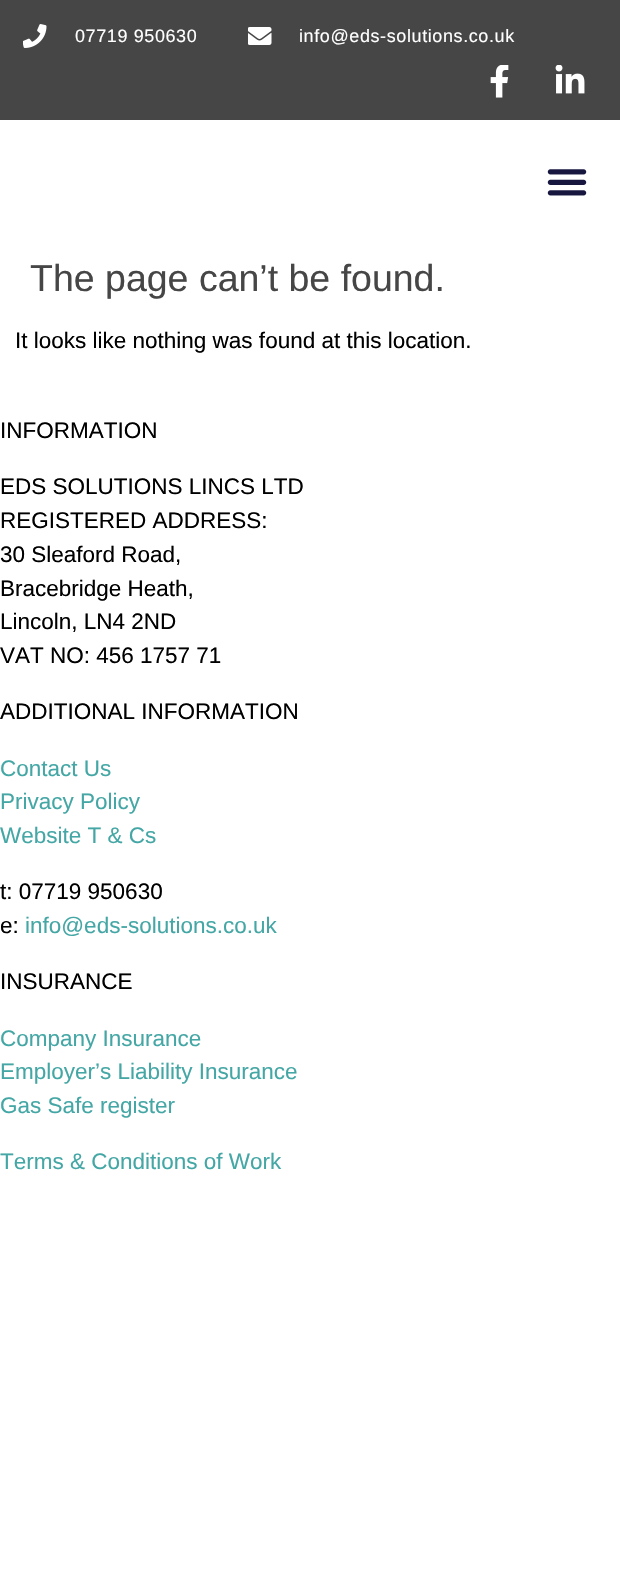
void draw(SkCanvas* canvas) {
	SkPaint paint;
	paint.setAntiAlias(true);
	auto spacedText = [&](const char* s, float x, float y, const SkFont& font, const SkPaint& ink, float letter, float word) {
		std::vector<SkGlyphID> glyphs(font.countText(s, strlen(s), SkTextEncoding::kUTF8));
		std::vector<float> xs(glyphs.size());
		font.textToGlyphs(s, strlen(s), SkTextEncoding::kUTF8, glyphs);
		font.getXPos(glyphs, xs, x);
		float extra = 0;
		for (size_t i = 0; i < glyphs.size(); i++) {
			xs[i] += extra;
			extra += letter + word * (glyphs[i] == font.unicharToGlyph(' '));
		}
		canvas->drawTextBlob(SkTextBlob::MakeFromPosHGlyphs(glyphs, xs, y, font), 0, 0, ink);
	};
	canvas->clear(0xffffffff);
	paint.setColor(0xff464646);
	canvas->drawRect(SkRect::MakeXYWH(0, 0, 620, 120), paint);
	canvas->drawImageRect(SkImages::DeferredFromEncodedData(SkData::MakeFromFileName("img1.png")), SkRect::MakeXYWH(23, 24, 24, 24), SkSamplingOptions());
	SkFont f1(fontMgr->matchFamilyStyle("Liberation Sans", SkFontStyle::Normal()), 18);
	f1.setSubpixel(true);
	paint.setColor(0xffffffff);
	spacedText("07719 950630", 75, 42, f1, paint, 0.6, 0);
	canvas->drawImageRect(SkImages::DeferredFromEncodedData(SkData::MakeFromFileName("img2.png")), SkRect::MakeXYWH(248, 27, 24, 18), SkSamplingOptions());
	spacedText("info@eds-solutions.co.uk", 299, 42, f1, paint, 0.6, 0);
	canvas->drawImageRect(SkImages::DeferredFromEncodedData(SkData::MakeFromFileName("img3.png")), SkRect::MakeXYWH(490, 65, 19, 33), SkSamplingOptions());
	canvas->drawImageRect(SkImages::DeferredFromEncodedData(SkData::MakeFromFileName("img4.png")), SkRect::MakeXYWH(555, 65, 30, 29), SkSamplingOptions());
	canvas->drawImageRect(SkImages::DeferredFromEncodedData(SkData::MakeFromFileName("img5.png")), SkRect::MakeXYWH(547, 169, 40, 27), SkSamplingOptions());
	SkFont f2(fontMgr->matchFamilyStyle("Liberation Sans", SkFontStyle::Normal()), 37.5);
	f2.setSubpixel(true);
	paint.setColor(0xff464646);
	canvas->drawString("The page can’t be found.", 30, 291, f2, paint);
	SkFont f3(fontMgr->matchFamilyStyle("Liberation Sans", SkFontStyle::Normal()), 22.5);
	f3.setSubpixel(true);
	paint.setColor(0xff000000);
	canvas->drawString("It looks like nothing was found at this location.", 15, 348, f3, paint);
	canvas->drawString("INFORMATION", 0, 438, f3, paint);
	canvas->drawString("EDS SOLUTIONS LINCS LTD", 0, 494, f3, paint);
	canvas->drawString("REGISTERED ADDRESS:", 0, 528, f3, paint);
	canvas->drawString("30 Sleaford Road,", 0, 562, f3, paint);
	canvas->drawString("Bracebridge Heath,", 0, 596, f3, paint);
	canvas->drawString("Lincoln, LN4 2ND", 0, 629, f3, paint);
	canvas->drawString("VAT NO: 456 1757 71", 0, 663, f3, paint);
	canvas->drawString("ADDITIONAL INFORMATION", 0, 719, f3, paint);
	paint.setColor(0xff44a7a5);
	canvas->drawString("Contact Us", 0, 776, f3, paint);
	canvas->drawString("Privacy Policy", 0, 809, f3, paint);
	canvas->drawString("Website T & Cs", 0, 843, f3, paint);
	paint.setColor(0xff000000);
	canvas->drawString("t: 07719 950630", 0, 899, f3, paint);
	canvas->drawString("e:", 0, 933, f3, paint);
	paint.setColor(0xff44a7a5);
	canvas->drawString("info@eds-solutions.co.uk", 25, 933, f3, paint);
	paint.setColor(0xff000000);
	canvas->drawString("INSURANCE", 0, 989, f3, paint);
	paint.setColor(0xff44a7a5);
	canvas->drawString("Company Insurance", 0, 1046, f3, paint);
	canvas->drawString("Employer’s Liability Insurance", 0, 1079, f3, paint);
	canvas->drawString("Gas Safe register", 0, 1113, f3, paint);
	canvas->drawString("Terms & Conditions of Work", 0, 1169, f3, paint);
}
